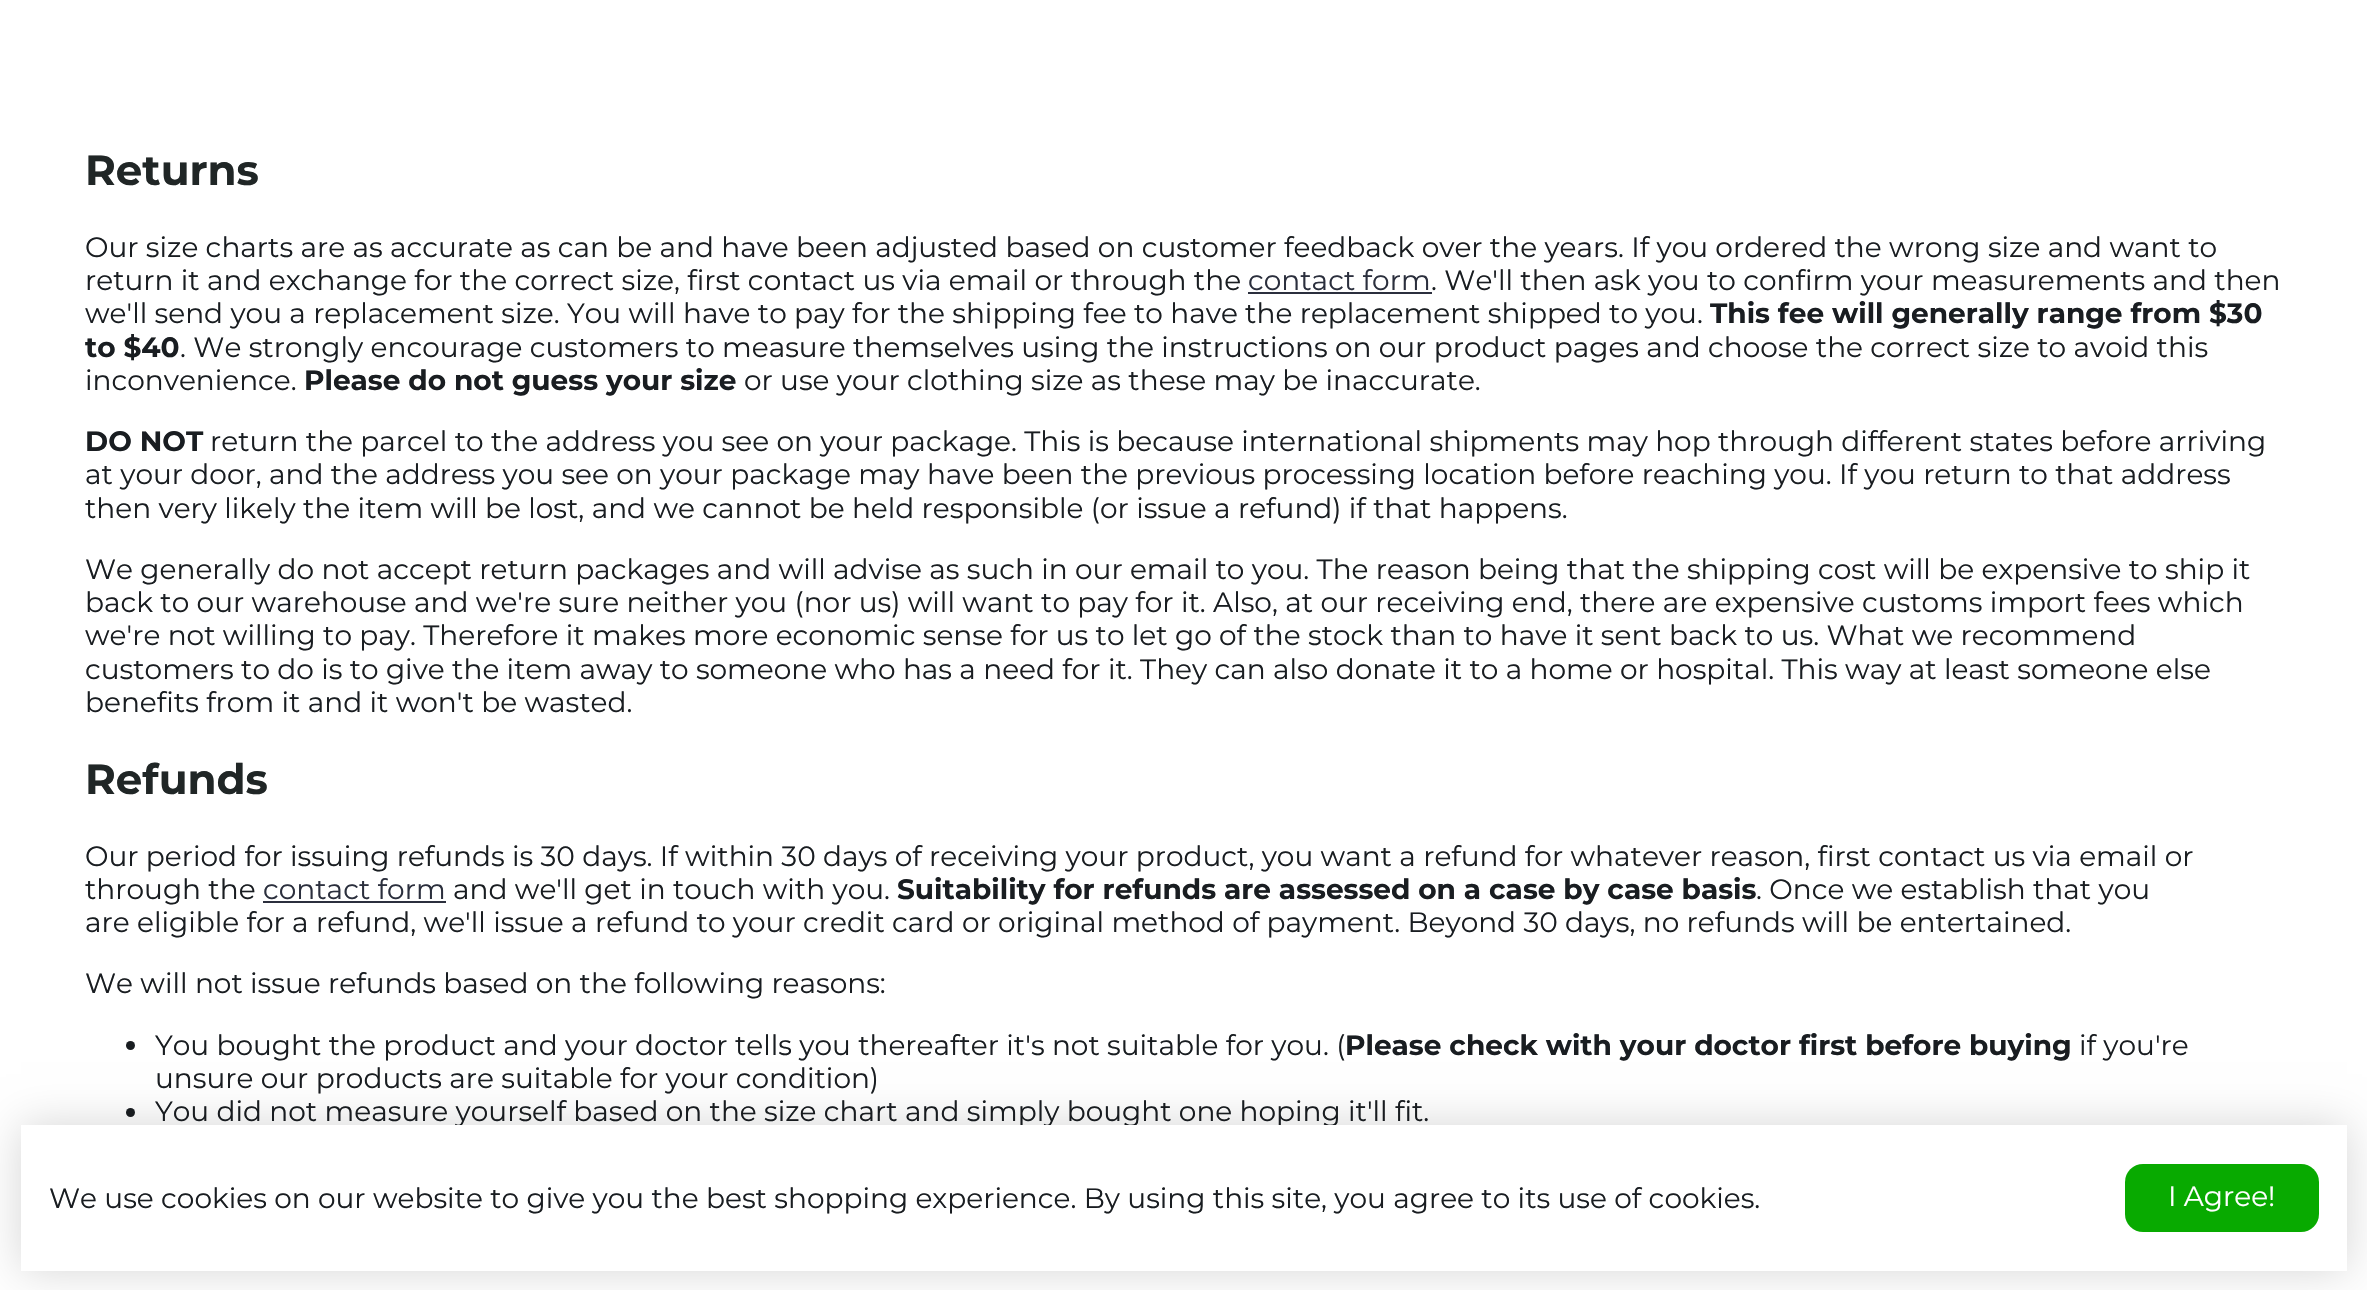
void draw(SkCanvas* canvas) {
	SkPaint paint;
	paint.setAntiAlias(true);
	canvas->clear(0xffffffff);
	SkFont f1(fontMgr->matchFamilyStyle("Montserrat", SkFontStyle::Bold()), 42);
	f1.setSubpixel(true);
	paint.setColor(0xff202626);
	canvas->drawString("Returns", 85, 185, f1, paint);
	SkFont f2(fontMgr->matchFamilyStyle("Montserrat", SkFontStyle::Normal()), 28);
	f2.setSubpixel(true);
	paint.setColor(0xff191d21);
	canvas->drawString("Our size charts are as accurate as can be and have been adjusted based on customer feedback over the years. If you ordered the wrong size and want to", 85, 257, f2, paint);
	canvas->drawString("return it and exchange for the correct size, first contact us via email or through the", 85, 290, f2, paint);
	paint.setColor(0xff2b2f3d);
	canvas->drawString("contact form", 1248, 290, f2, paint);
	canvas->drawRect(SkRect::MakeXYWH(1248, 292, 184, 2), paint);
	paint.setColor(0xff191d21);
	canvas->drawString(". We'll then ask you to confirm your measurements and then", 1431, 290, f2, paint);
	canvas->drawString("we'll send you a replacement size. You will have to pay for the shipping fee to have the replacement shipped to you.", 85, 323, f2, paint);
	SkFont f3(fontMgr->matchFamilyStyle("Montserrat", SkFontStyle::Bold()), 28);
	f3.setSubpixel(true);
	canvas->drawString("This fee will generally range from $30", 1710, 323, f3, paint);
	canvas->drawString("to $40", 85, 357, f3, paint);
	canvas->drawString(". We strongly encourage customers to measure themselves using the instructions on our product pages and choose the correct size to avoid this", 180, 357, f2, paint);
	canvas->drawString("inconvenience.", 85, 390, f2, paint);
	canvas->drawString("Please do not guess your size", 304, 390, f3, paint);
	canvas->drawString("or use your clothing size as these may be inaccurate.", 744, 390, f2, paint);
	canvas->drawString("DO NOT", 85, 451, f3, paint);
	canvas->drawString("return the parcel to the address you see on your package. This is because international shipments may hop through different states before arriving", 210, 451, f2, paint);
	canvas->drawString("at your door, and the address you see on your package may have been the previous processing location before reaching you. If you return to that address", 85, 484, f2, paint);
	canvas->drawString("then very likely the item will be lost, and we cannot be held responsible (or issue a refund) if that happens.", 85, 518, f2, paint);
	canvas->drawString("We generally do not accept return packages and will advise as such in our email to you. The reason being that the shipping cost will be expensive to ship it", 85, 579, f2, paint);
	canvas->drawString("back to our warehouse and we're sure neither you (nor us) will want to pay for it. Also, at our receiving end, there are expensive customs import fees which", 85, 612, f2, paint);
	canvas->drawString("we're not willing to pay. Therefore it makes more economic sense for us to let go of the stock than to have it sent back to us. What we recommend", 85, 645, f2, paint);
	canvas->drawString("customers to do is to give the item away to someone who has a need for it. They can also donate it to a home or hospital. This way at least someone else", 85, 679, f2, paint);
	canvas->drawString("benefits from it and it won't be wasted.", 85, 712, f2, paint);
	paint.setColor(0xff202626);
	canvas->drawString("Refunds", 85, 794, f1, paint);
	paint.setColor(0xff191d21);
	canvas->drawString("Our period for issuing refunds is 30 days. If within 30 days of receiving your product, you want a refund for whatever reason, first contact us via email or", 85, 866, f2, paint);
	canvas->drawString("through the", 85, 899, f2, paint);
	paint.setColor(0xff2b2f3d);
	canvas->drawString("contact form", 263, 899, f2, paint);
	canvas->drawRect(SkRect::MakeXYWH(263, 901, 183, 2), paint);
	paint.setColor(0xff191d21);
	canvas->drawString("and we'll get in touch with you.", 453, 899, f2, paint);
	canvas->drawString("Suitability for refunds are assessed on a case by case basis", 897, 899, f3, paint);
	canvas->drawString(". Once we establish that you", 1756, 899, f2, paint);
	canvas->drawString("are eligible for a refund, we'll issue a refund to your credit card or original method of payment. Beyond 30 days, no refunds will be entertained.", 85, 932, f2, paint);
	canvas->drawString("We will not issue refunds based on the following reasons:", 85, 993, f2, paint);
	canvas->drawCircle(130.5, 1045.5, 4.5, paint);
	canvas->drawString("You bought the product and your doctor tells you thereafter it's not suitable for you. (", 155, 1055, f2, paint);
	canvas->drawString("Please check with your doctor first before buying", 1345, 1055, f3, paint);
	canvas->drawString("if you're", 2079, 1055, f2, paint);
	canvas->drawString("unsure our products are suitable for your condition)", 155, 1088, f2, paint);
	canvas->drawCircle(130.5, 1112.5, 4.5, paint);
	canvas->drawString("You did not measure yourself based on the size chart and simply bought one hoping it'll fit.", 155, 1121, f2, paint);
	paint.setColor(0x29000000);
	paint.setMaskFilter(SkMaskFilter::MakeBlur(kNormal_SkBlurStyle, 21));
	canvas->drawRect(SkRect::MakeXYWH(21, 1125, 2326, 146), paint);
	paint.setMaskFilter(nullptr);
	paint.setColor(0xffffffff);
	canvas->drawRect(SkRect::MakeXYWH(21, 1125, 2326, 146), paint);
	paint.setColor(0xff191d21);
	canvas->drawString("We use cookies on our website to give you the best shopping experience. By using this site, you agree to its use of cookies.", 49, 1208, f2, paint);
	paint.setColor(0xff08aa00);
	canvas->drawRoundRect(SkRect::MakeXYWH(2125, 1164, 194, 68), 18, 18, paint);
	paint.setColor(0xffffffff);
	canvas->drawString("I Agree!", 2168, 1206, f2, paint);
}
